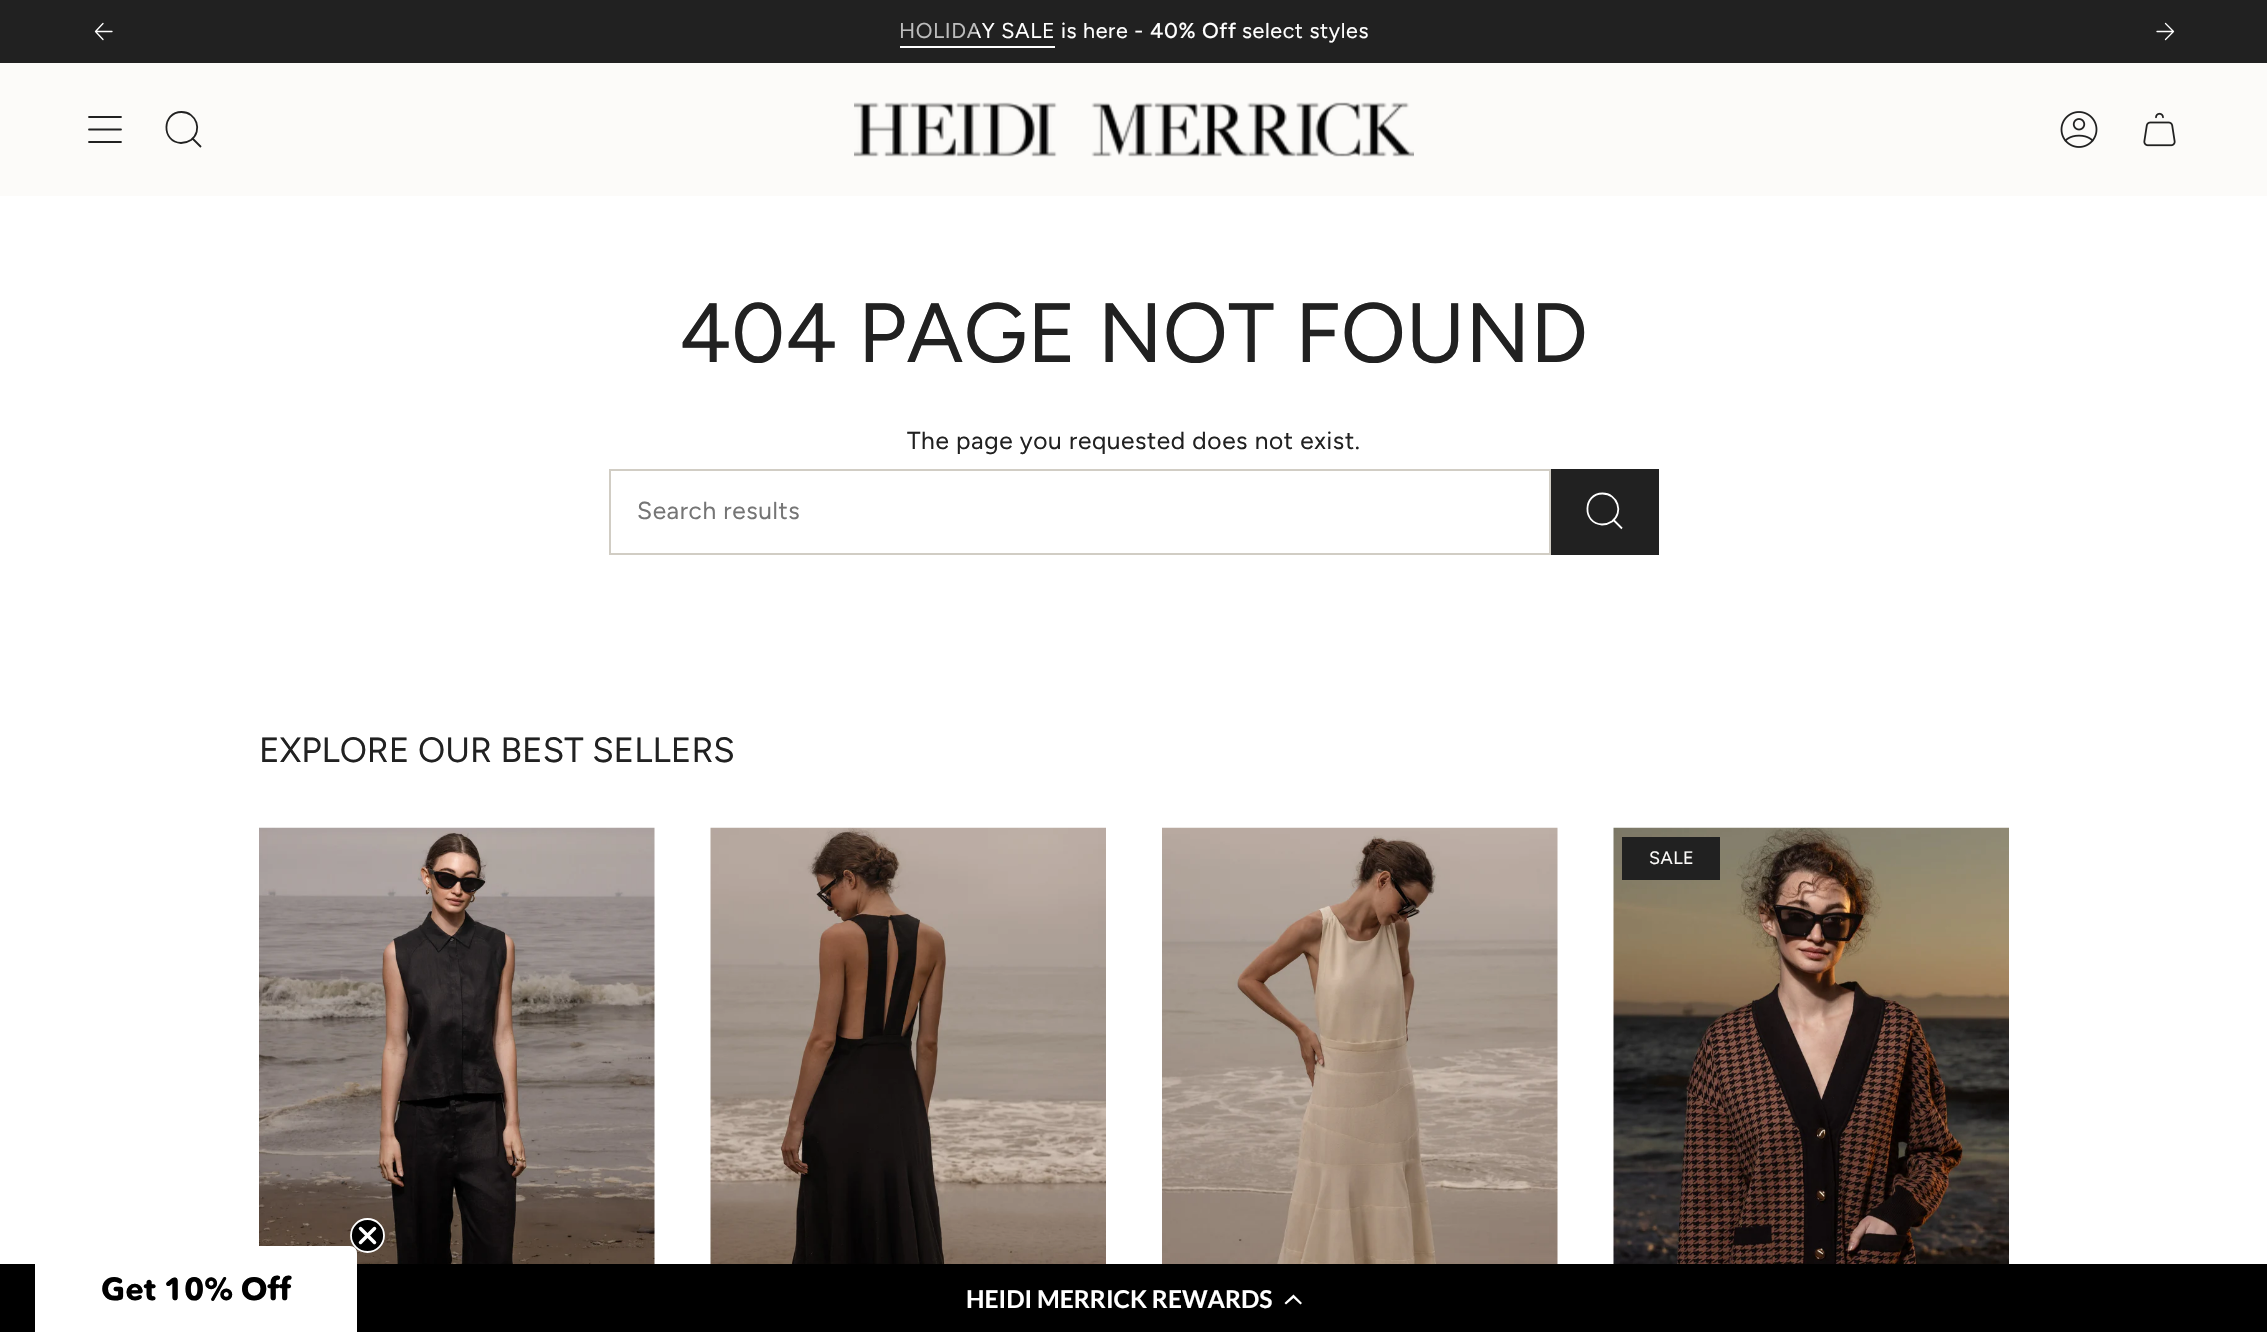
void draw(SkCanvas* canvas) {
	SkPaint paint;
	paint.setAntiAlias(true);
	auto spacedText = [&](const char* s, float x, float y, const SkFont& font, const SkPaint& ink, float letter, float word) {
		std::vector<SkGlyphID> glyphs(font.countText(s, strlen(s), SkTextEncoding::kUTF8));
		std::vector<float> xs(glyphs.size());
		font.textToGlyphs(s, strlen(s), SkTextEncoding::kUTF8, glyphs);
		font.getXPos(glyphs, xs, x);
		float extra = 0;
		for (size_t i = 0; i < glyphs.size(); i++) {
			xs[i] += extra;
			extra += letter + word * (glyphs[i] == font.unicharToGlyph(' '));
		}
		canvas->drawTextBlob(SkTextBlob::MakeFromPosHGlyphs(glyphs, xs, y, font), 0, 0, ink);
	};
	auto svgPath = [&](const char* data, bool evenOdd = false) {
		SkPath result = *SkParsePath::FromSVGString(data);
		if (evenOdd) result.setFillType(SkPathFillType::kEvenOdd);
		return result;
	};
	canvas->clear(0xffffffff);
	paint.setColor(0xff212121);
	canvas->drawRect(SkRect::MakeXYWH(0, 0, 2267, 63), paint);
	paint.setStroke(true);
	paint.setStrokeWidth(1.3);
	paint.setStrokeCap(SkPaint::kRound_Cap);
	paint.setStrokeJoin(SkPaint::kRound_Join);
	paint.setColor(0xffffffff);
	canvas->drawPath(svgPath("M112 31.5H95.5M95.5 31.5L103 23.5M95.5 31.5L103 39.5"), paint);
	SkFont f1(fontMgr->matchFamilyStyle("Figtree", SkFontStyle::Normal()), 21.5);
	f1.setSubpixel(true);
	paint.setStroke(false);
	{
		const SkColor colors[] = {0xffbcbcbc, 0xffbcbcbc, 0xffffffff, 0xffffffff};
		const float stops[] = {0, 0.5, 0.5, 1};
		const SkPoint ends[] = {{899, 32}, {1055, 31}};
		paint.setShader(SkGradientShader::MakeLinear(ends, colors, stops, 4, SkTileMode::kClamp));
		paint.setAlpha(255);
	}
	spacedText("HOLIDAY SALE", 899, 38, f1, paint, 0.6, 0);
	paint.setShader(nullptr);
	paint.setColor(0xffffffff);
	canvas->drawRect(SkRect::MakeXYWH(900, 46, 155, 2), paint);
	spacedText("is here -", 1061, 38, f1, paint, 0.6, 0);
	SkFont f2(fontMgr->matchFamilyStyle("Figtree", SkFontStyle(500, SkFontStyle::kNormal_Width, SkFontStyle::kUpright_Slant)), 21.5);
	f2.setSubpixel(true);
	spacedText("40% Off", 1150, 38, f2, paint, 0.6, 0);
	spacedText("select styles", 1242, 38, f1, paint, 0.6, 0);
	paint.setStroke(true);
	canvas->drawPath(svgPath("M2157 31.5H2173.5M2173.5 31.5L2165.5 23.5M2173.5 31.5L2165.5 39.5"), paint);
	paint.setStroke(false);
	paint.setColor(0xfffcfbf9);
	canvas->drawRect(SkRect::MakeXYWH(0, 63, 2267, 133), paint);
	paint.setStroke(true);
	paint.setStrokeWidth(1.8);
	paint.setColor(0xff212121);
	canvas->drawPath(svgPath("M89 117H121M89 129.5H121M89 142H121"), paint);
	paint.setStrokeCap(SkPaint::kButt_Cap);
	paint.setStrokeJoin(SkPaint::kMiter_Join);
	canvas->drawPath(svgPath("M181.5 112C196.5 112 203 131 191 140C188 142 184.5 143 181 143C161 142 162 112 181.5 112ZM192.5 138.5L201 147"), paint);
	canvas->drawImageRect(SkImages::DeferredFromEncodedData(SkData::MakeFromFileName("img1.png")), SkRect::MakeXYWH(854, 102, 560, 55), SkSamplingOptions());
	canvas->drawImageRect(SkImages::DeferredFromEncodedData(SkData::MakeFromFileName("img2.png")), SkRect::MakeXYWH(2060, 111, 38, 37), SkSamplingOptions());
	canvas->drawImageRect(SkImages::DeferredFromEncodedData(SkData::MakeFromFileName("img3.png")), SkRect::MakeXYWH(2143, 112, 33, 35), SkSamplingOptions());
	SkFont f3(fontMgr->matchFamilyStyle("Figtree", SkFontStyle::Normal()), 84);
	f3.setSubpixel(true);
	paint.setStroke(false);
	canvas->drawString("404 PAGE NOT FOUND", 679, 362, f3, paint);
	SkFont f4(fontMgr->matchFamilyStyle("Figtree", SkFontStyle::Normal()), 24.5);
	f4.setSubpixel(true);
	spacedText("The page you requested does not exist.", 907, 449, f4, paint, 0.6, 0);
	paint.setStroke(true);
	paint.setStrokeWidth(2);
	paint.setColor(0xffd1cdc4);
	canvas->drawRect(SkRect::MakeXYWH(610, 470, 940, 84), paint);
	paint.setStroke(false);
	paint.setColor(0xff757575);
	spacedText("Search results", 637, 519, f4, paint, 0.6, 0);
	paint.setColor(0xff212121);
	canvas->drawRect(SkRect::MakeXYWH(1551, 469, 108, 86), paint);
	paint.setStroke(true);
	paint.setStrokeWidth(1.8);
	paint.setColor(0xffffffff);
	canvas->drawPath(svgPath("M1602.5 493.5C1617.5 493.5 1624 512.5 1612 521.5C1609 523.5 1605.5 524.5 1602 524.5C1582 523.5 1583 493.5 1602.5 493.5ZM1613.5 520L1622 528.5"), paint);
	SkFont f5(fontMgr->matchFamilyStyle("Figtree", SkFontStyle::Normal()), 35);
	f5.setSubpixel(true);
	paint.setStroke(false);
	paint.setColor(0xff212121);
	canvas->drawString("EXPLORE OUR BEST SELLERS", 259, 762, f5, paint);
	canvas->drawImageRect(SkImages::DeferredFromEncodedData(SkData::MakeFromFileName("img4.png")), SkRect::MakeXYWH(259, 827, 396, 437), SkSamplingOptions());
	canvas->drawImageRect(SkImages::DeferredFromEncodedData(SkData::MakeFromFileName("img5.png")), SkRect::MakeXYWH(710, 827, 396, 437), SkSamplingOptions());
	canvas->drawImageRect(SkImages::DeferredFromEncodedData(SkData::MakeFromFileName("img6.png")), SkRect::MakeXYWH(1162, 827, 396, 437), SkSamplingOptions());
	canvas->drawImageRect(SkImages::DeferredFromEncodedData(SkData::MakeFromFileName("img7.png")), SkRect::MakeXYWH(1613, 827, 396, 437), SkSamplingOptions());
	canvas->drawRect(SkRect::MakeXYWH(1622, 837, 98, 43), paint);
	SkFont f6(fontMgr->matchFamilyStyle("Figtree", SkFontStyle::Normal()), 18);
	f6.setSubpixel(true);
	paint.setColor(0xfffcfbf9);
	spacedText("SALE", 1649, 864, f6, paint, 0.5, 0);
	paint.setColor(0xff000000);
	canvas->drawRect(SkRect::MakeXYWH(0, 1264, 2267, 68), paint);
	paint.setColor(0xffffffff);
	canvas->drawPath(svgPath("M42 1246H350C354 1246 357 1249 357 1253V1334H35V1253C35 1249 38 1246 42 1246Z"), paint);
	paint.setColor(0xff000000);
	canvas->drawCircle(367.5, 1235.5, 16.5, paint);
	paint.setStroke(true);
	paint.setColor(0xffffffff);
	canvas->drawCircle(367.5, 1235.5, 16.5, paint);
	paint.setStrokeWidth(3.5);
	paint.setStrokeCap(SkPaint::kRound_Cap);
	paint.setStrokeJoin(SkPaint::kRound_Join);
	canvas->drawPath(svgPath("M360.5 1228.5L374.5 1242.5M360.5 1242.5L374.5 1228.5Z"), paint);
	SkFont f7(fontMgr->matchFamilyStyle("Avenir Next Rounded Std", SkFontStyle::Bold()), 31.5);
	f7.setSubpixel(true);
	paint.setStroke(false);
	paint.setColor(0xff000000);
	canvas->drawString("Get 10% Off", 101, 1300, f7, paint);
	SkFont f8(fontMgr->matchFamilyStyle("Lato", SkFontStyle::Bold()), 24.5);
	f8.setSubpixel(true);
	paint.setColor(0xffffffff);
	canvas->drawString("HEIDI MERRICK REWARDS", 966, 1308, f8, paint);
	canvas->drawPath(svgPath("M1293.5 1298L1286 1304.5L1284.5 1303L1293.5 1294.5L1302 1303L1300.5 1304.5Z"), paint);
}
